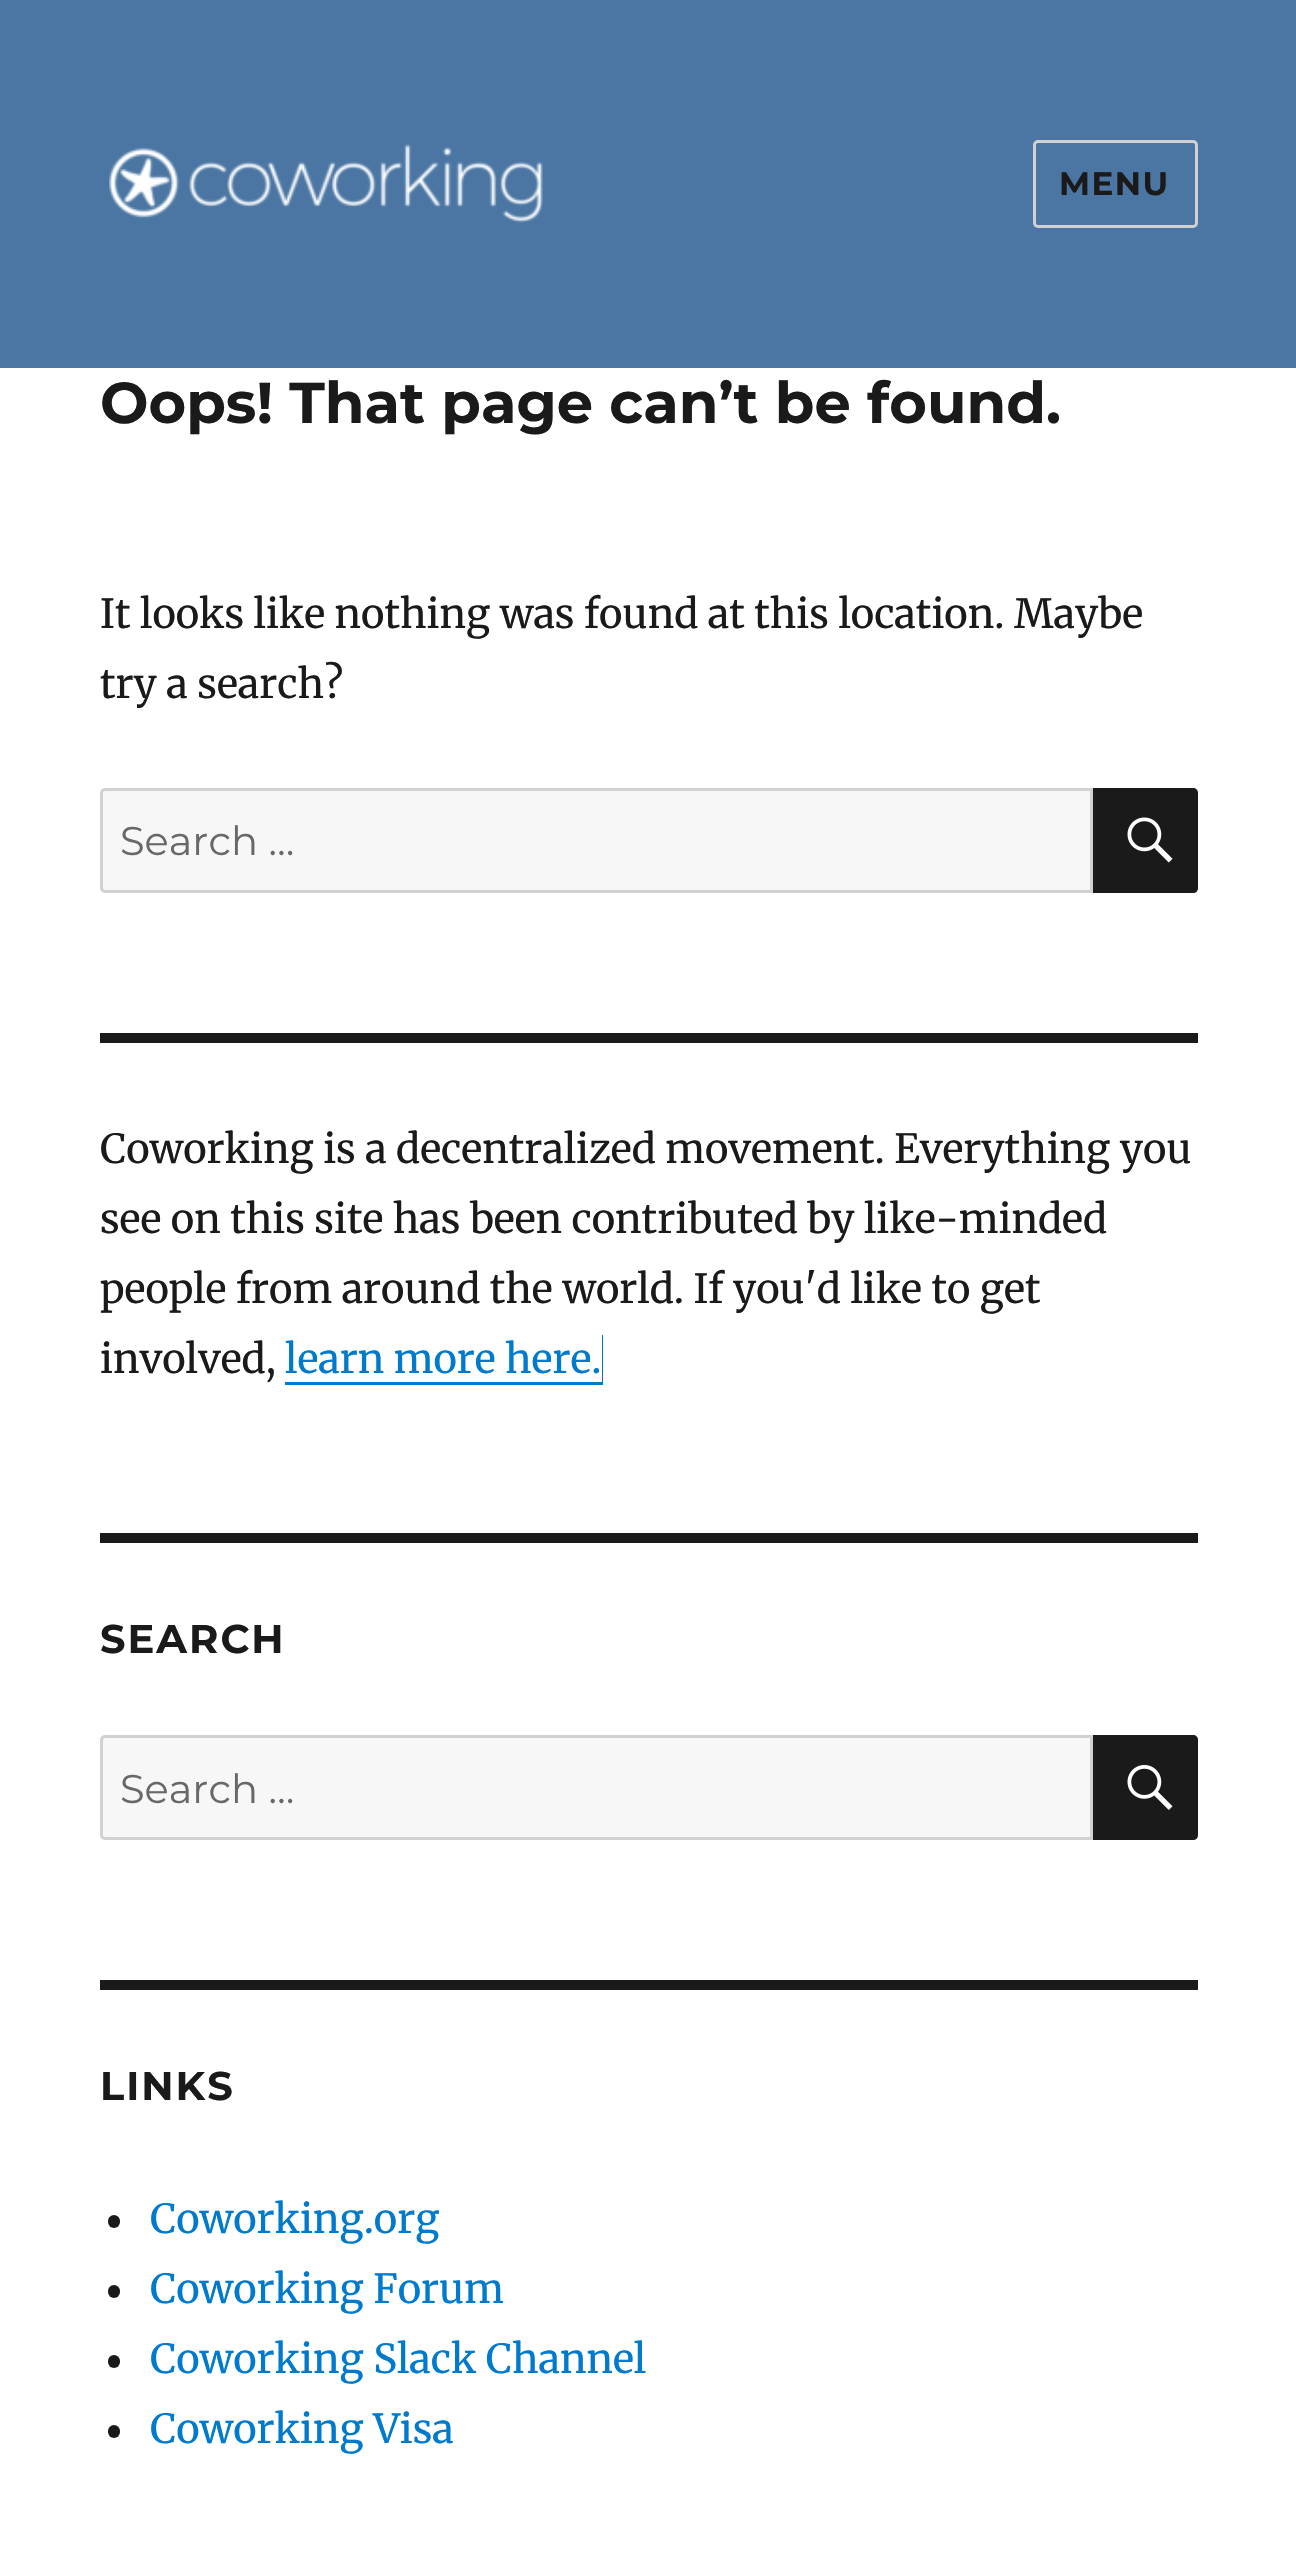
void draw(SkCanvas* canvas) {
	SkPaint paint;
	paint.setAntiAlias(true);
	auto spacedText = [&](const char* s, float x, float y, const SkFont& font, const SkPaint& ink, float letter, float word) {
		std::vector<SkGlyphID> glyphs(font.countText(s, strlen(s), SkTextEncoding::kUTF8));
		std::vector<float> xs(glyphs.size());
		font.textToGlyphs(s, strlen(s), SkTextEncoding::kUTF8, glyphs);
		font.getXPos(glyphs, xs, x);
		float extra = 0;
		for (size_t i = 0; i < glyphs.size(); i++) {
			xs[i] += extra;
			extra += letter + word * (glyphs[i] == font.unicharToGlyph(' '));
		}
		canvas->drawTextBlob(SkTextBlob::MakeFromPosHGlyphs(glyphs, xs, y, font), 0, 0, ink);
	};
	auto svgPath = [&](const char* data, bool evenOdd = false) {
		SkPath result = *SkParsePath::FromSVGString(data);
		if (evenOdd) result.setFillType(SkPathFillType::kEvenOdd);
		return result;
	};
	canvas->clear(0xff4b76a3);
	canvas->drawImageRect(SkImages::DeferredFromEncodedData(SkData::MakeFromFileName("img1.png")), SkRect::MakeXYWH(109, 144, 434, 79), SkSamplingOptions());
	paint.setStroke(true);
	paint.setStrokeWidth(3);
	paint.setColor(0xffd1d1d1);
	canvas->drawRoundRect(SkRect::MakeXYWH(1034.5, 141.5, 162, 85), 3.5, 3.5, paint);
	SkFont f1(fontMgr->matchFamilyStyle("Montserrat", SkFontStyle::Bold()), 32.5);
	f1.setSubpixel(true);
	paint.setStroke(false);
	paint.setColor(0xff1a1a1a);
	spacedText("MENU", 1059, 195, f1, paint, 1.5, 0);
	paint.setColor(0xffffffff);
	canvas->drawRect(SkRect::MakeXYWH(0, 368, 1296, 2199), paint);
	SkFont f2(fontMgr->matchFamilyStyle("Montserrat", SkFontStyle::Bold()), 57.5);
	f2.setSubpixel(true);
	paint.setColor(0xff1a1a1a);
	canvas->drawString("Oops! That page can’t be found.", 100, 423, f2, paint);
	SkFont f3(fontMgr->matchFamilyStyle("Merriweather", SkFontStyle::Normal()), 40);
	f3.setSubpixel(true);
	canvas->drawString("It looks like nothing was found at this location. Maybe", 100, 628, f3, paint);
	canvas->drawString("try a search?", 100, 698, f3, paint);
	paint.setColor(0xfff7f7f7);
	canvas->drawPath(svgPath("M105 789.5H1091.5V891.5H105C103 891.5 101.5 890 101.5 888V793C101.5 791 103 789.5 105 789.5Z"), paint);
	paint.setStroke(true);
	paint.setColor(0xffd1d1d1);
	canvas->drawPath(svgPath("M105 789.5H1091.5V891.5H105C103 891.5 101.5 890 101.5 888V793C101.5 791 103 789.5 105 789.5Z"), paint);
	SkFont f4(fontMgr->matchFamilyStyle("Montserrat", SkFontStyle::Normal()), 40);
	f4.setSubpixel(true);
	paint.setStroke(false);
	paint.setColor(0xff686868);
	canvas->drawString("Search …", 120, 855, f4, paint);
	paint.setColor(0xff1a1a1a);
	canvas->drawPath(svgPath("M1093 788H1193C1196 788 1198 790 1198 793V888C1198 891 1196 893 1193 893H1093Z"), paint);
	canvas->drawImageRect(SkImages::DeferredFromEncodedData(SkData::MakeFromFileName("img2.png")), SkRect::MakeXYWH(1127, 817, 46, 46), SkSamplingOptions());
	canvas->drawRect(SkRect::MakeXYWH(100, 1033, 1098, 10), paint);
	canvas->drawString("Coworking is a decentralized movement. Everything you", 100, 1163, f3, paint);
	canvas->drawString("see on this site has been contributed by like-minded", 100, 1233, f3, paint);
	canvas->drawString("people from around the world. If you'd like to get", 100, 1303, f3, paint);
	canvas->drawString("involved,", 100, 1373, f3, paint);
	paint.setColor(0xff007acc);
	canvas->drawPath(svgPath("M285 1382V1385H603V1335H602V1382Z"), paint);
	canvas->drawString("learn more here.", 285, 1373, f3, paint);
	paint.setColor(0xff1a1a1a);
	canvas->drawRect(SkRect::MakeXYWH(100, 1533, 1098, 10), paint);
	SkFont f5(fontMgr->matchFamilyStyle("Montserrat", SkFontStyle::Bold()), 40);
	f5.setSubpixel(true);
	spacedText("SEARCH", 100, 1653, f5, paint, 2, 0);
	paint.setColor(0xfff7f7f7);
	canvas->drawPath(svgPath("M105 1736.5H1091.5V1838.5H105C103 1838.5 101.5 1837 101.5 1835V1740C101.5 1738 103 1736.5 105 1736.5Z"), paint);
	paint.setStroke(true);
	paint.setColor(0xffd1d1d1);
	canvas->drawPath(svgPath("M105 1736.5H1091.5V1838.5H105C103 1838.5 101.5 1837 101.5 1835V1740C101.5 1738 103 1736.5 105 1736.5Z"), paint);
	paint.setStroke(false);
	paint.setColor(0xff686868);
	canvas->drawString("Search …", 120, 1803, f4, paint);
	paint.setColor(0xff1a1a1a);
	canvas->drawPath(svgPath("M1093 1735H1193C1196 1735 1198 1737 1198 1740V1835C1198 1838 1196 1840 1193 1840H1093Z"), paint);
	canvas->drawImageRect(SkImages::DeferredFromEncodedData(SkData::MakeFromFileName("img3.png")), SkRect::MakeXYWH(1127, 1765, 46, 45), SkSamplingOptions());
	canvas->drawRect(SkRect::MakeXYWH(100, 1980, 1098, 10), paint);
	spacedText("LINKS", 100, 2100, f5, paint, 2, 0);
	canvas->drawRoundRect(SkRect::MakeXYWH(108, 2215, 12, 13), 6, 6, paint);
	paint.setColor(0xff007acc);
	canvas->drawString("Coworking.org", 150, 2233, f3, paint);
	paint.setColor(0xff1a1a1a);
	canvas->drawRoundRect(SkRect::MakeXYWH(108, 2285, 12, 13), 6, 6, paint);
	paint.setColor(0xff007acc);
	canvas->drawString("Coworking Forum", 150, 2303, f3, paint);
	paint.setColor(0xff1a1a1a);
	canvas->drawRoundRect(SkRect::MakeXYWH(108, 2355, 12, 13), 6, 6, paint);
	paint.setColor(0xff007acc);
	canvas->drawString("Coworking Slack Channel", 150, 2373, f3, paint);
	paint.setColor(0xff1a1a1a);
	canvas->drawRoundRect(SkRect::MakeXYWH(108, 2425, 12, 13), 6, 6, paint);
	paint.setColor(0xff007acc);
	canvas->drawString("Coworking Visa", 150, 2443, f3, paint);
}
